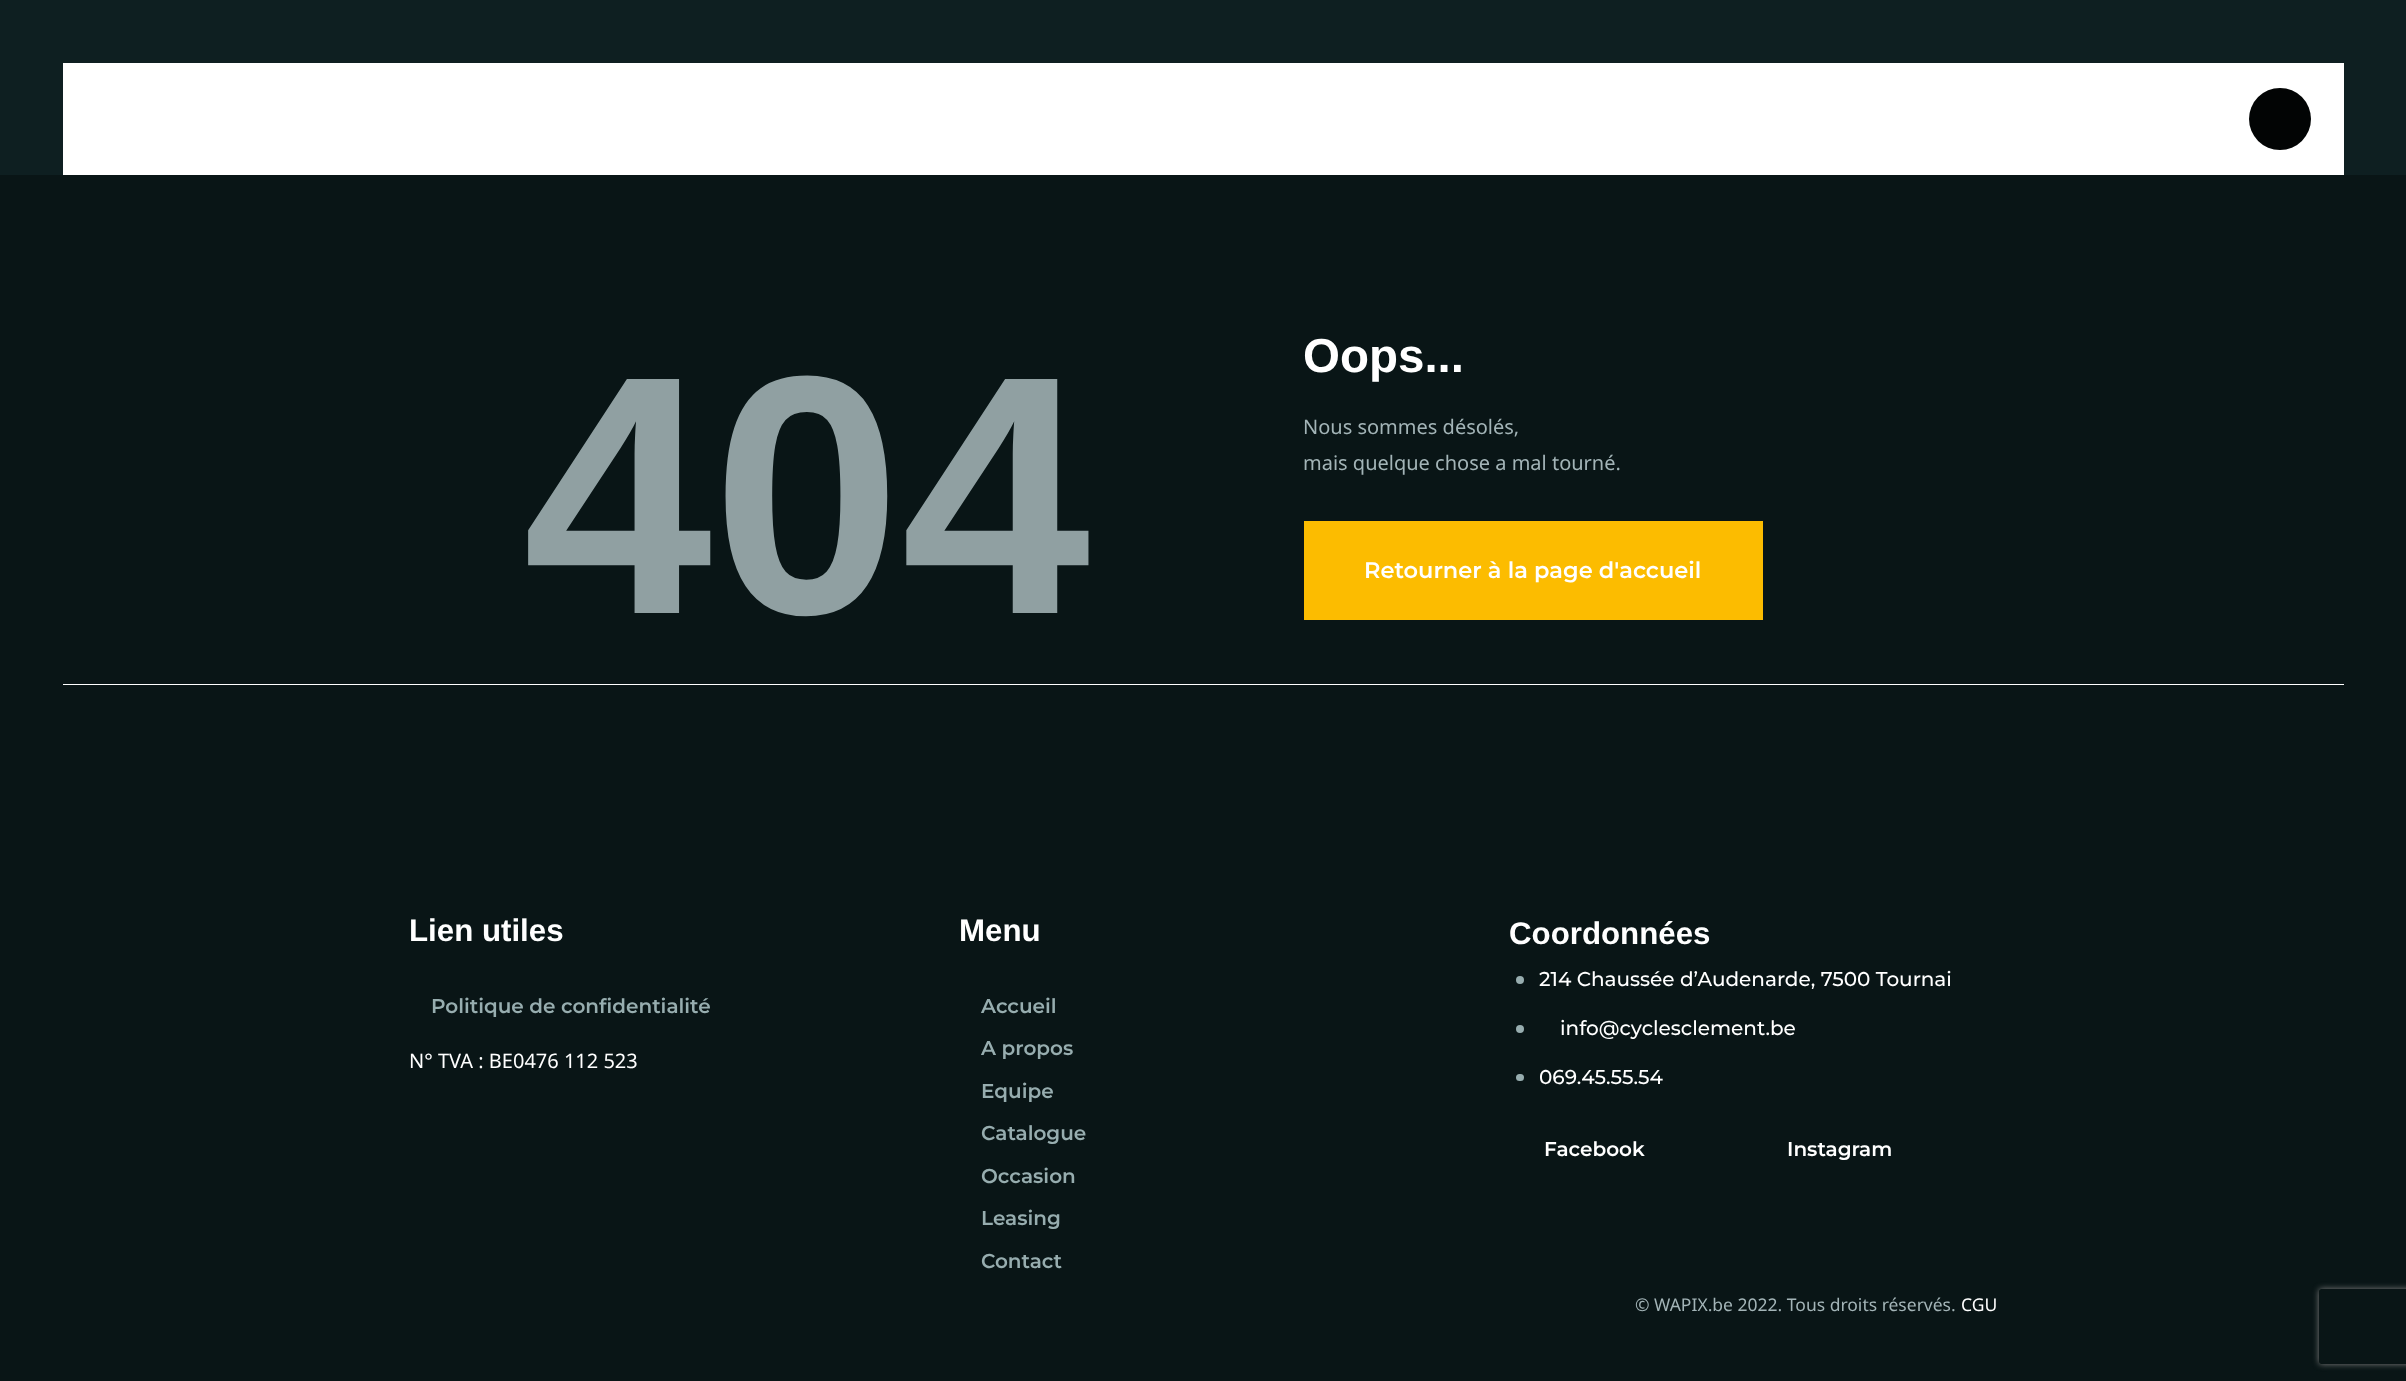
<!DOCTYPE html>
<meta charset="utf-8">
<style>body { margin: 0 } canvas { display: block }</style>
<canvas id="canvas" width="2406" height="1381"></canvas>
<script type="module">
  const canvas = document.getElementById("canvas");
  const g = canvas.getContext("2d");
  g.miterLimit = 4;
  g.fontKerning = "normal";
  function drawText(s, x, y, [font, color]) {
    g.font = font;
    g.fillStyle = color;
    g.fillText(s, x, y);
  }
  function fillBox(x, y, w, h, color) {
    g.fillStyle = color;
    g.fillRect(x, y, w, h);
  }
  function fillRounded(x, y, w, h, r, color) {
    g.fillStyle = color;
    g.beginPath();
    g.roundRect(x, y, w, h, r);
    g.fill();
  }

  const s1 = ["bold 340px Liberation Sans", "#90A0A2"];
  const s2 = ["bold 47.5px Liberation Sans", "#FFFFFF"];
  const s3 = ["20px Noto Sans", "#A3B4B7"];
  const s4 = ["600 22.5px Montserrat", "#FFFFFF"];
  const s5 = ["bold 31.25px Liberation Sans", "#FFFFFF"];
  const s6 = ["600 20px Montserrat", "#97ADAF"];
  const s7 = ["20px Noto Sans", "#FFFFFF"];
  const s8 = ["500 20px Montserrat", "#FFFFFF"];
  const s9 = ["600 20px Montserrat", "#FFFFFF"];
  const s10 = ["17.5px Noto Sans", "#A3B4B7"];
  const s11 = ["17.5px Noto Sans", "#FFFFFF"];

  fillBox(0, 0, 2406, 1381, "#091516");
  fillBox(0, 0, 2406, 175, "#0E1F21");
  fillBox(63, 63, 2281, 112, "#FFFFFF");
  g.fillStyle = "#020404";
  g.beginPath();
  g.arc(2280, 119, 31, 0, Math.PI * 2);
  g.fill();
  drawText("404", 523, 613, s1);
  drawText("Oops...", 1303, 372, s2);
  drawText("Nous sommes désolés,", 1303, 434, s3);
  drawText("mais quelque chose a mal tourné.", 1303, 470, s3);
  fillBox(1304, 521, 459, 99, "#FCBC00");
  drawText("Retourner à la page d'accueil", 1364, 578, s4);
  fillBox(63, 684, 2281, 1, "#FFFFFF");
  drawText("Lien utiles", 409, 941, s5);
  drawText("Politique de confidentialité", 431, 1013, s6);
  drawText("N° TVA : BE0476 112 523", 409, 1068, s7);
  drawText("Menu", 959, 941, s5);
  drawText("Accueil", 981, 1013, s6);
  drawText("A propos", 981, 1055, s6);
  drawText("Equipe", 981, 1098, s6);
  drawText("Catalogue", 981, 1140, s6);
  drawText("Occasion", 981, 1183, s6);
  drawText("Leasing", 981, 1225, s6);
  drawText("Contact", 981, 1268, s6);
  drawText("Coordonnées", 1509, 944, s5);
  g.fillStyle = "#97ADAF";
  g.beginPath();
  g.arc(1520, 980, 4, 0, Math.PI * 2);
  g.fill();
  drawText("214 Chaussée d’Audenarde, 7500 Tournai", 1539, 986, s8);
  g.fillStyle = "#97ADAF";
  g.beginPath();
  g.arc(1520, 1029, 4, 0, Math.PI * 2);
  g.fill();
  drawText("info@cyclesclement.be", 1560, 1035, s8);
  fillRounded(1516, 1074, 8, 7, 3.5, "#97ADAF");
  drawText("069.45.55.54", 1539, 1084, s8);
  drawText("Facebook", 1544, 1156, s9);
  drawText("Instagram", 1787, 1156, s9);
  drawText("© WAPIX.be 2022. Tous droits réservés.", 1635, 1311, s10);
  drawText("CGU", 1961, 1311, s11);
  g.save();
  g.beginPath();
  g.moveTo(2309, 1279);
  g.lineTo(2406, 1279);
  g.lineTo(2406, 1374);
  g.lineTo(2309, 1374);
  g.closePath();
  g.moveTo(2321.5, 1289);
  g.lineTo(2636.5, 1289);
  g.bezierCurveTo(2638, 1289, 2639, 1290, 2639, 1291.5);
  g.lineTo(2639, 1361.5);
  g.bezierCurveTo(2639, 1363, 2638, 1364, 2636.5, 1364);
  g.lineTo(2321.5, 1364);
  g.bezierCurveTo(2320, 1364, 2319, 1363, 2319, 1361.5);
  g.lineTo(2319, 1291.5);
  g.bezierCurveTo(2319, 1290, 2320, 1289, 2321.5, 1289);
  g.closePath();
  g.clip("evenodd");
  g.fillStyle = "#808080";
  g.filter = "blur(3px)";
  g.beginPath();
  g.roundRect(2319, 1289, 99, 75, 2.5);
  g.fill();
  g.filter = "none";
  g.restore();
</script>
